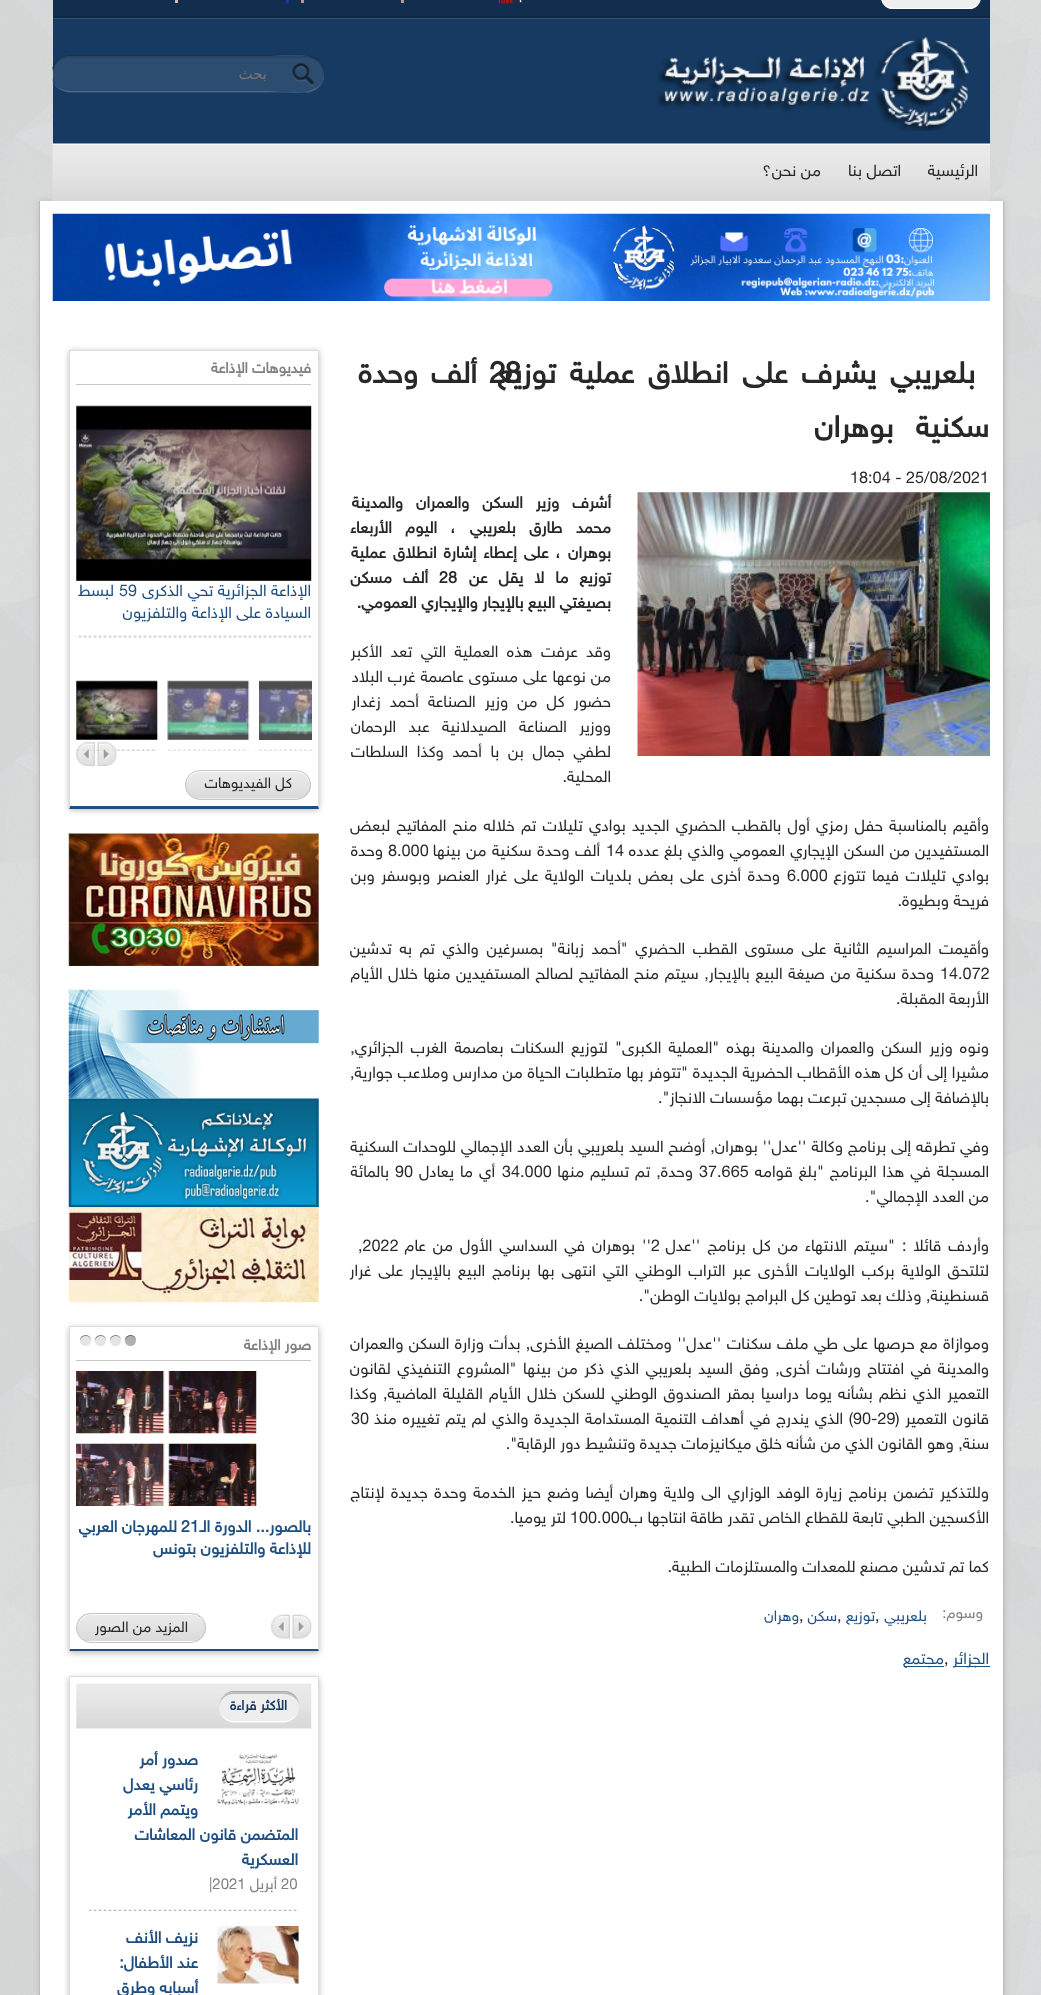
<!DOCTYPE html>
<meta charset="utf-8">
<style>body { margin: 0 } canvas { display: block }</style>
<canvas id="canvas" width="1041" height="1995"></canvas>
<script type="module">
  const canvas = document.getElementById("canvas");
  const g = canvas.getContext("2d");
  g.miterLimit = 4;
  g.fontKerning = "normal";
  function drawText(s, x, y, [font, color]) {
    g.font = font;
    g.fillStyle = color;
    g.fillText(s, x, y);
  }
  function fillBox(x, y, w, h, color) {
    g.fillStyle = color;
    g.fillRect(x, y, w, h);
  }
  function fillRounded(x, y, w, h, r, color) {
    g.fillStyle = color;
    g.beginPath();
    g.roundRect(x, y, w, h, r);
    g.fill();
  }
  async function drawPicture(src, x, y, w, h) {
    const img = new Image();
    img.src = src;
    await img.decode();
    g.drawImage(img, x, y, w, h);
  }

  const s1 = ["15px DejaVu Sans", "#757575"];
  const s2 = ["16.25px 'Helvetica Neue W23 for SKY'", "#282828"];
  const s3 = ["bold 30px 'Helvetica Neue W23 for SKY'", "#282828"];
  const s4 = ["bold 16.25px 'Helvetica Neue W23 for SKY'", "#282828"];
  const s5 = ["15px 'Helvetica Neue W23 for SKY'", "#828181"];
  const s6 = ["15px 'Helvetica Neue W23 for SKY'", "#1F4F82"];
  const s7 = ["16.25px 'Helvetica Neue W23 for SKY'", "#1F4F82"];
  const s8 = ["bold 15px 'Helvetica Neue W23 for SKY'", "#828181"];
  const s9 = ["15px 'Helvetica Neue W23 for SKY'", "#282828"];
  const s10 = ["bold 16.25px 'Helvetica Neue W23 for SKY'", "#1F4F82"];
  const s11 = ["bold 13.75px 'Helvetica Neue W23 for SKY'", "#163A61"];

  fillBox(0, 0, 1041, 1995, "#FFFFFF");
  await drawPicture("pic1.png", 0, 0, 1041, 1995);
  fillBox(53, 0, 937, 18, "#122E4E");
  fillBox(53, 16, 937, 1, "#0F2640");
  fillRounded(881, -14, 100, 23, 14, "#EEEEEE");
  g.fillStyle = "#FFFFFF";
  g.beginPath();
  g.moveTo(892, 9);
  g.bezierCurveTo(887, 8, 881, 3, 881, -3);
  g.bezierCurveTo(882, 3, 888, 8, 895, 8);
  g.lineTo(968, 8);
  g.bezierCurveTo(975, 8, 981, 2, 981, -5);
  g.bezierCurveTo(981, 2, 976, 8, 970, 9);
  g.closePath();
  g.fill();
  await drawPicture("pic2.png", 518, 0, 4, 3);
  await drawPicture("pic3.png", 498, 0, 15, 4);
  fillBox(401, 0, 3, 3, "#C59090");
  fillBox(301, 0, 3, 3, "#C59090");
  await drawPicture("pic4.png", 285, 0, 5, 4);
  fillBox(175, 0, 3, 3, "#DBB9B9");
  fillBox(53, 19, 937, 125, "#163A61");
  fillBox(53, 18, 937, 1, "#305072");
  await drawPicture("pic5.png", 657, 37, 312, 94);
  fillRounded(53, 55, 271, 38, 18, "#2D4D70");
  g.fillStyle = "rgba(0, 0, 0, 0.1)";
  g.beginPath();
  g.moveTo(70, 58);
  g.lineTo(306, 58);
  g.bezierCurveTo(317, 58, 324, 66, 324, 77);
  g.bezierCurveTo(325, 66, 318, 56, 306, 56);
  g.lineTo(70, 56);
  g.bezierCurveTo(61, 56, 53, 63, 52, 72);
  g.bezierCurveTo(54, 65, 60, 58, 70, 58);
  g.closePath();
  g.fill();
  g.fillStyle = "#1C3045";
  g.beginPath();
  g.moveTo(70, 55);
  g.bezierCurveTo(61, 55, 52, 62, 52, 71);
  g.bezierCurveTo(54, 62, 61, 56, 70, 56);
  g.lineTo(267, 56);
  g.bezierCurveTo(280, 56, 323, 47, 324, 74);
  g.lineTo(324, 69);
  g.bezierCurveTo(322, 61, 315, 55, 306, 55);
  g.closePath();
  g.fill();
  g.fillStyle = "#4C6886";
  g.beginPath();
  g.moveTo(324, 78);
  g.lineTo(324, 74);
  g.bezierCurveTo(324, 86, 314, 91, 302, 92);
  g.lineTo(281, 92);
  g.lineTo(267, 91);
  g.lineTo(70, 91);
  g.lineTo(63, 90);
  g.bezierCurveTo(57, 88, 53, 83, 52, 78);
  g.lineTo(52, 79);
  g.bezierCurveTo(54, 87, 61, 92, 70, 92);
  g.lineTo(281, 92);
  g.bezierCurveTo(287, 92, 295, 93, 302, 92);
  g.lineTo(306, 92);
  g.bezierCurveTo(315, 92, 322, 86, 324, 78);
  g.closePath();
  g.fill();
  await drawPicture("pic6.png", 292, 63, 22, 23);
  g.direction = "rtl";
  drawText("بحث", 267, 79, s1);
  g.fillStyle = "#BBBBBB";
  g.filter = "blur(3px)";
  g.beginPath();
  g.rect(39, 201, 965, 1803);
  g.fill();
  g.filter = "none";
  await drawPicture("pic7.png", 52, 143, 938, 58);
  drawText("الرئيسية", 978, 176, s2);
  drawText("اتصل بنا", 901, 176, s2);
  drawText("من نحن؟", 821, 176, s2);
  fillBox(40, 201, 963, 1794, "#FFFFFF");
  fillBox(1003, 201, 1, 1794, "#BBBBBB");
  fillBox(39, 201, 1, 1794, "#BBBBBB");
  await drawPicture("pic8.png", 52, 213, 938, 88);
  g.letterSpacing = "-1.25px";
  g.wordSpacing = "6.75px";
  drawText(" بلعريبي يشرف على انطلاق عملية توزيع", 989, 383, s3);
  g.wordSpacing = "0px";
  g.direction = "ltr";
  drawText("28", 489, 383, s3);
  g.wordSpacing = "6px";
  g.direction = "rtl";
  drawText("ألف وحدة", 477, 383, s3);
  g.wordSpacing = "15px";
  drawText("سكنية بوهران", 989, 437, s3);
  g.letterSpacing = "0px";
  g.wordSpacing = "0px";
  g.direction = "ltr";
  drawText("18:04 - 25/08/2021", 850, 483, s2);
  await drawPicture("pic9.png", 637, 492, 353, 264);
  g.wordSpacing = "8.5px";
  g.direction = "rtl";
  drawText("أشرف وزير السكن والعمران والمدينة", 611, 508, s4);
  g.wordSpacing = "9px";
  drawText("محمد طارق بلعريبي ، اليوم الأربعاء", 611, 533, s4);
  g.wordSpacing = "2.5px";
  drawText("بوهران ، على إعطاء إشارة انطلاق عملية", 611, 558, s4);
  g.wordSpacing = "6.5px";
  drawText("توزيع ما لا يقل عن", 611, 583, s4);
  g.wordSpacing = "0px";
  g.direction = "ltr";
  drawText("28", 439, 583, s4);
  g.wordSpacing = "6.5px";
  g.direction = "rtl";
  drawText("ألف مسكن", 428, 583, s4);
  g.wordSpacing = "0px";
  drawText("بصيغتي البيع بالإيجار والإيجاري العمومي.", 611, 608, s4);
  g.wordSpacing = "4px";
  drawText("وقد عرفت هذه العملية التي تعد الأكبر", 611, 657, s2);
  g.wordSpacing = "0.5px";
  drawText("من نوعها على مستوى عاصمة غرب البلاد", 611, 682, s2);
  g.wordSpacing = "4.5px";
  drawText("حضور كل من وزير الصناعة أحمد زغدار", 611, 707, s2);
  g.wordSpacing = "8px";
  drawText("ووزير الصناعة الصيدلانية عبد الرحمان", 611, 732, s2);
  g.wordSpacing = "4.25px";
  drawText("لطفي جمال بن با أحمد وكذا السلطات", 611, 757, s2);
  g.wordSpacing = "0px";
  drawText("المحلية.", 611, 782, s2);
  g.wordSpacing = "1.75px";
  drawText("وأقيم بالمناسبة حفل رمزي أول بالقطب الحضري الجديد بوادي تليلات تم خلاله منح المفاتيح لبعض", 989, 831, s2);
  g.wordSpacing = "0.75px";
  drawText("المستفيدين من السكن الإيجاري العمومي والذي بلغ عدده", 989, 856, s2);
  g.wordSpacing = "0px";
  g.direction = "ltr";
  drawText("14", 606, 856, s2);
  g.wordSpacing = "1px";
  g.direction = "rtl";
  drawText("ألف وحدة سكنية من بينها", 600, 856, s2);
  g.wordSpacing = "0px";
  g.direction = "ltr";
  drawText("8.000", 388, 856, s2);
  g.direction = "rtl";
  drawText("وحدة", 383, 856, s2);
  g.wordSpacing = "2px";
  drawText("بوادي تليلات فيما تتوزع", 989, 881, s2);
  g.wordSpacing = "0px";
  g.direction = "ltr";
  drawText("6.000", 787, 881, s2);
  g.wordSpacing = "2px";
  g.direction = "rtl";
  drawText("وحدة أخرى على بعض بلديات الولاية على غرار العنصر وبوسفر وبن", 780, 881, s2);
  g.wordSpacing = "0px";
  drawText("فريحة وبطيوة.", 989, 906, s2);
  g.wordSpacing = "3.1px";
  drawText("وأقيمت المراسيم الثانية على مستوى القطب الحضري \"أحمد زبانة\" بمسرغين والذي تم به تدشين", 989, 954, s2);
  g.wordSpacing = "0px";
  g.direction = "ltr";
  drawText("14.072", 940, 979, s2);
  g.wordSpacing = "1.1px";
  g.direction = "rtl";
  drawText("وحدة سكنية من صيغة البيع بالإيجار, سيتم منح المفاتيح لصالح المستفيدين منها خلال الأيام", 934, 979, s2);
  g.wordSpacing = "0px";
  drawText("الأربعة المقبلة.", 989, 1004, s2);
  g.wordSpacing = "2.75px";
  drawText("ونوه وزير السكن والعمران والمدينة بهذه \"العملية الكبرى\" لتوزيع السكنات بعاصمة الغرب الجزائري,", 989, 1053, s2);
  g.wordSpacing = "0.2px";
  drawText("مشيرا إلى أن كل هذه الأقطاب الحضرية الجديدة \"تتوفر بها متطلبات الحياة من مدارس وملاعب جوارية,", 989, 1078, s2);
  g.wordSpacing = "0px";
  drawText("بالإضافة إلى مسجدين تبرعت بهما مؤسسات الانجاز\".", 989, 1103, s2);
  g.wordSpacing = "0.4px";
  drawText("وفي تطرقه إلى برنامج وكالة ''عدل'' بوهران, أوضح السيد بلعريبي بأن العدد الإجمالي للوحدات السكنية", 989, 1152, s2);
  g.wordSpacing = "1.5px";
  drawText("المسجلة في هذا البرنامج \"بلغ قوامه", 989, 1177, s2);
  g.wordSpacing = "0px";
  g.direction = "ltr";
  drawText("37.665", 699, 1177, s2);
  g.wordSpacing = "1.5px";
  g.direction = "rtl";
  drawText("وحدة, تم تسليم منها", 693, 1177, s2);
  g.wordSpacing = "0px";
  g.direction = "ltr";
  drawText("34.000", 502, 1177, s2);
  g.wordSpacing = "1.5px";
  g.direction = "rtl";
  drawText("أي ما يعادل", 495, 1177, s2);
  g.wordSpacing = "0px";
  g.direction = "ltr";
  drawText("90", 395, 1177, s2);
  g.direction = "rtl";
  drawText("بالمائة", 389, 1177, s2);
  drawText("من العدد الإجمالي\".", 989, 1202, s2);
  g.wordSpacing = "2.5px";
  drawText("وأردف قائلا : \"سيتم الانتهاء من كل برنامج ''عدل", 989, 1251, s2);
  g.wordSpacing = "0px";
  g.direction = "ltr";
  drawText("2", 651, 1251, s2);
  g.wordSpacing = "2.5px";
  g.direction = "rtl";
  drawText("'' بوهران في السداسي الأول من عام", 651, 1251, s2);
  g.wordSpacing = "0px";
  g.direction = "ltr";
  drawText(",2022", 358, 1251, s2);
  g.wordSpacing = "2.5px";
  g.direction = "rtl";
  drawText("لتلتحق الولاية بركب الولايات الأخرى عبر التراب الوطني التي انتهى بها برنامج البيع بالإيجار على غرار", 989, 1276, s2);
  g.wordSpacing = "0px";
  drawText("قسنطينة, وذلك بعد توطين كل البرامج بولايات الوطن\".", 989, 1301, s2);
  g.wordSpacing = "0.9px";
  drawText("وموازاة مع حرصها على طي ملف سكنات ''عدل'' ومختلف الصيغ الأخرى, بدأت وزارة السكن والعمران", 989, 1349, s2);
  g.wordSpacing = "2px";
  drawText("والمدينة في افتتاح ورشات أخرى, وفق السيد بلعريبي الذي ذكر من بينها \"المشروع التنفيذي لقانون", 989, 1374, s2);
  g.wordSpacing = "1.7px";
  drawText("التعمير الذي نظم بشأنه يوما دراسيا بمقر الصندوق الوطني للسكن خلال الأيام القليلة الماضية, وكذا", 989, 1399, s2);
  g.wordSpacing = "1.25px";
  drawText("قانون التعمير (", 989, 1424, s2);
  g.wordSpacing = "0px";
  g.direction = "ltr";
  drawText("90-29", 853, 1424, s2);
  g.wordSpacing = "1.25px";
  g.direction = "rtl";
  drawText(") الذي يندرج في أهداف التنمية المستدامة الجديدة والذي لم يتم تغييره منذ", 853, 1424, s2);
  g.wordSpacing = "0px";
  g.direction = "ltr";
  drawText("30", 351, 1424, s2);
  g.direction = "rtl";
  drawText("سنة, وهو القانون الذي من شأنه خلق ميكانيزمات جديدة وتنشيط دور الرقابة\".", 989, 1449, s2);
  g.wordSpacing = "2px";
  drawText("وللتذكير تضمن برنامج زيارة الوفد الوزاري الى ولاية وهران أيضا وضع حيز الخدمة وحدة جديدة لإنتاج", 989, 1498, s2);
  g.wordSpacing = "0px";
  drawText("الأكسجين الطبي تابعة للقطاع الخاص تقدر طاقة انتاجها ب", 989, 1523, s2);
  g.direction = "ltr";
  drawText("100.000", 570, 1523, s2);
  g.direction = "rtl";
  drawText("لتر يوميا.", 566, 1523, s2);
  drawText("كما تم تدشين مصنع للمعدات والمستلزمات الطبية.", 989, 1572, s2);
  drawText("وسوم:", 983, 1618, s5);
  drawText(" بلعريبي", 931, 1621, s6);
  g.direction = "ltr";
  drawText(",", 875, 1621, s2);
  g.direction = "rtl";
  drawText("توزيع", 875, 1621, s6);
  g.direction = "ltr";
  drawText(",", 837, 1621, s2);
  g.direction = "rtl";
  drawText("سكن", 837, 1621, s6);
  g.direction = "ltr";
  drawText(",", 799, 1621, s2);
  g.direction = "rtl";
  drawText("وهران", 799, 1621, s6);
  fillBox(954, 1666, 36, 1, "#1F4F82");
  drawText("الجزائر", 989, 1664, s7);
  g.direction = "ltr";
  drawText(",", 944, 1664, s2);
  fillBox(904, 1666, 40, 1, "#1F4F82");
  g.direction = "rtl";
  drawText("مجتمع", 944, 1664, s7);
  g.save();
  g.beginPath();
  g.moveTo(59, 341);
  g.lineTo(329, 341);
  g.lineTo(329, 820);
  g.lineTo(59, 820);
  g.closePath();
  g.moveTo(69, 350);
  g.lineTo(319, 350);
  g.lineTo(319, 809);
  g.lineTo(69, 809);
  g.closePath();
  g.clip("evenodd");
  g.fillStyle = "#BBBBBB";
  g.filter = "blur(3px)";
  g.beginPath();
  g.rect(69, 351, 250, 459);
  g.fill();
  g.filter = "none";
  g.restore();
  fillBox(69, 350, 250, 1, "#DDDDDD");
  g.beginPath();
  g.moveTo(319, 350);
  g.lineTo(319, 809);
  g.lineTo(318, 806);
  g.lineTo(318, 351);
  g.closePath();
  g.fill();
  g.fillStyle = "#1F4F82";
  g.beginPath();
  g.moveTo(319, 809);
  g.lineTo(69, 809);
  g.lineTo(70, 806);
  g.lineTo(318, 806);
  g.closePath();
  g.fill();
  g.fillStyle = "#DDDDDD";
  g.beginPath();
  g.moveTo(69, 809);
  g.lineTo(69, 350);
  g.lineTo(70, 351);
  g.lineTo(70, 806);
  g.closePath();
  g.fill();
  fillBox(76, 384, 235, 1, "#C6C6C6");
  drawText("فيديوهات الإذاعة", 311, 373, s8);
  await drawPicture("pic10.png", 76, 635, 235, 3);
  await drawPicture("pic11.png", 76, 405, 236, 176);
  drawText("الإذاعة الجزائرية تحي الذكرى", 311, 596, s7);
  g.direction = "ltr";
  drawText("59", 119, 596, s7);
  g.direction = "rtl";
  drawText("لبسط", 114, 596, s7);
  drawText("السيادة على الإذاعة والتلفزيون", 311, 618, s7);
  await drawPicture("pic12.png", 259, 749, 53, 2);
  await drawPicture("pic13.png", 259, 680, 53, 60);
  await drawPicture("pic14.png", 168, 749, 82, 2);
  await drawPicture("pic15.png", 167, 680, 83, 60);
  await drawPicture("pic16.png", 76, 749, 82, 2);
  await drawPicture("pic17.png", 76, 680, 82, 60);
  await drawPicture("pic18.png", 97, 742, 20, 24);
  await drawPicture("pic19.png", 76, 742, 19, 24);
  await drawPicture("pic20.png", 185, 771, 126, 28);
  g.fillStyle = "#FFFFFF";
  g.beginPath();
  g.moveTo(200, 772);
  g.lineTo(296, 772);
  g.bezierCurveTo(304, 772, 310, 779, 310, 786);
  g.lineTo(310, 785);
  g.bezierCurveTo(310, 777, 304, 771, 296, 771);
  g.lineTo(200, 771);
  g.bezierCurveTo(192, 771, 186, 777, 186, 785);
  g.lineTo(186, 786);
  g.bezierCurveTo(186, 779, 192, 772, 200, 772);
  g.closePath();
  g.fill();
  g.beginPath();
  g.roundRect(185.5, 770.5, 125, 29, 14.5);
  g.strokeStyle = "#C6C6C6";
  g.stroke();
  drawText("كل الفيديوهات", 292, 788, s9);
  await drawPicture("pic21.png", 68, 833, 251, 133);
  await drawPicture("pic22.png", 68, 989, 251, 110);
  await drawPicture("pic23.png", 68, 1098, 251, 110);
  await drawPicture("pic24.png", 68, 1207, 251, 96);
  g.save();
  g.beginPath();
  g.moveTo(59, 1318);
  g.lineTo(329, 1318);
  g.lineTo(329, 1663);
  g.lineTo(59, 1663);
  g.closePath();
  g.moveTo(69, 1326);
  g.lineTo(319, 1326);
  g.lineTo(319, 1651);
  g.lineTo(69, 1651);
  g.closePath();
  g.clip("evenodd");
  g.fillStyle = "#BBBBBB";
  g.filter = "blur(3px)";
  g.beginPath();
  g.rect(69, 1328, 250, 325);
  g.fill();
  g.filter = "none";
  g.restore();
  fillBox(69, 1326, 250, 1, "#DDDDDD");
  g.beginPath();
  g.moveTo(319, 1326);
  g.lineTo(319, 1651);
  g.lineTo(318, 1649);
  g.lineTo(318, 1328);
  g.closePath();
  g.fill();
  g.fillStyle = "#1F4F82";
  g.beginPath();
  g.moveTo(319, 1651);
  g.lineTo(69, 1651);
  g.lineTo(70, 1649);
  g.lineTo(318, 1649);
  g.closePath();
  g.fill();
  g.fillStyle = "#DDDDDD";
  g.beginPath();
  g.moveTo(69, 1651);
  g.lineTo(69, 1326);
  g.lineTo(70, 1328);
  g.lineTo(70, 1649);
  g.closePath();
  g.fill();
  fillBox(76, 1360, 235, 1, "#C6C6C6");
  drawText("صور الإذاعة", 311, 1350, s8);
  g.fillStyle = "#B0B0B0";
  g.beginPath();
  g.arc(130.5, 1340.5, 5.5, 0, Math.PI * 2);
  g.fill();
  g.fillStyle = "rgba(0, 0, 0, 0.4)";
  g.beginPath();
  g.moveTo(131, 1336);
  g.bezierCurveTo(133.5, 1336, 135.5, 1338, 136, 1340);
  g.bezierCurveTo(135.5, 1332.5, 124, 1334, 125, 1341);
  g.bezierCurveTo(125.5, 1338.5, 127.5, 1336, 131, 1336);
  g.closePath();
  g.fill();
  g.fillStyle = "#E4E4E4";
  g.beginPath();
  g.arc(115.5, 1340.5, 5.5, 0, Math.PI * 2);
  g.fill();
  g.fillStyle = "rgba(0, 0, 0, 0.4)";
  g.beginPath();
  g.moveTo(116, 1336);
  g.bezierCurveTo(118.5, 1336, 120.5, 1338, 121, 1340);
  g.bezierCurveTo(120.5, 1332.5, 109, 1334, 110, 1341);
  g.bezierCurveTo(110.5, 1338.5, 112.5, 1336, 116, 1336);
  g.closePath();
  g.fill();
  g.fillStyle = "#E4E4E4";
  g.beginPath();
  g.arc(100.5, 1340.5, 5.5, 0, Math.PI * 2);
  g.fill();
  g.fillStyle = "rgba(0, 0, 0, 0.4)";
  g.beginPath();
  g.moveTo(101, 1336);
  g.bezierCurveTo(103.5, 1336, 105.5, 1338, 106, 1340);
  g.bezierCurveTo(105.5, 1332.5, 94, 1334, 95, 1341);
  g.bezierCurveTo(95.5, 1338.5, 97.5, 1336, 101, 1336);
  g.closePath();
  g.fill();
  g.fillStyle = "#E4E4E4";
  g.beginPath();
  g.arc(85.5, 1340.5, 5.5, 0, Math.PI * 2);
  g.fill();
  g.fillStyle = "rgba(0, 0, 0, 0.4)";
  g.beginPath();
  g.moveTo(86, 1336);
  g.bezierCurveTo(88.5, 1336, 90.5, 1338, 91, 1340);
  g.bezierCurveTo(90.5, 1332.5, 79, 1334, 80, 1341);
  g.bezierCurveTo(80.5, 1338.5, 82.5, 1336, 86, 1336);
  g.closePath();
  g.fill();
  await drawPicture("pic25.png", 168, 1371, 89, 63);
  await drawPicture("pic26.png", 76, 1371, 89, 63);
  await drawPicture("pic27.png", 168, 1443, 89, 63);
  await drawPicture("pic28.png", 76, 1443, 89, 63);
  drawText("بالصور... الدورة الـ", 311, 1532, s10);
  g.direction = "ltr";
  drawText("21", 181, 1532, s10);
  g.direction = "rtl";
  drawText("للمهرجان العربي", 177, 1532, s10);
  drawText("للإذاعة والتلفزيون بتونس", 311, 1554, s10);
  await drawPicture("pic29.png", 292, 1614, 20, 25);
  await drawPicture("pic30.png", 271, 1614, 19, 25);
  await drawPicture("pic31.png", 76, 1613, 130, 28);
  g.fillStyle = "#FFFFFF";
  g.beginPath();
  g.moveTo(91, 1615);
  g.lineTo(191, 1615);
  g.bezierCurveTo(199, 1615, 205, 1621, 205, 1628);
  g.bezierCurveTo(205, 1620, 199, 1614, 192, 1614);
  g.lineTo(92, 1614);
  g.bezierCurveTo(84, 1614, 78, 1620, 78, 1628);
  g.bezierCurveTo(78, 1621, 84, 1615, 91, 1615);
  g.closePath();
  g.fill();
  g.beginPath();
  g.roundRect(76.5, 1613.5, 129, 29, 14.5);
  g.stroke();
  drawText("المزيد من الصور", 188, 1632, s9);
  g.save();
  g.beginPath();
  g.moveTo(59, 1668);
  g.lineTo(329, 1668);
  g.lineTo(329, 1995);
  g.lineTo(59, 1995);
  g.closePath();
  g.moveTo(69, 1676);
  g.lineTo(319, 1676);
  g.lineTo(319, 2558);
  g.lineTo(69, 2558);
  g.closePath();
  g.clip("evenodd");
  g.fillStyle = "#BBBBBB";
  g.filter = "blur(3px)";
  g.beginPath();
  g.rect(69, 1678, 250, 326);
  g.fill();
  g.filter = "none";
  g.restore();
  fillBox(69, 1676, 250, 1, "#DDDDDD");
  g.beginPath();
  g.moveTo(319, 1676);
  g.lineTo(319, 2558);
  g.lineTo(318, 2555);
  g.lineTo(318, 1678);
  g.closePath();
  g.fill();
  g.beginPath();
  g.moveTo(69, 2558);
  g.lineTo(69, 1676);
  g.lineTo(70, 1678);
  g.lineTo(70, 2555);
  g.closePath();
  g.fill();
  await drawPicture("pic32.png", 76, 1683, 236, 46);
  fillRounded(219, 1691, 80, 32, 16, "#EEEEEE");
  g.fillStyle = "#BEBEBE";
  g.beginPath();
  g.moveTo(234, 1694);
  g.lineTo(283, 1694);
  g.bezierCurveTo(291, 1694, 297, 1698, 299, 1705);
  g.bezierCurveTo(297, 1698, 291, 1692, 283, 1692);
  g.lineTo(234, 1692);
  g.bezierCurveTo(226, 1692, 219, 1699, 219, 1707);
  g.lineTo(219, 1710);
  g.bezierCurveTo(218, 1701, 225, 1694, 234, 1694);
  g.closePath();
  g.fill();
  g.fillStyle = "#ADADAD";
  g.beginPath();
  g.moveTo(234, 1692);
  g.bezierCurveTo(226, 1692, 219, 1699, 219, 1707);
  g.bezierCurveTo(219, 1699, 225, 1693, 231, 1691);
  g.lineTo(286, 1691);
  g.bezierCurveTo(293, 1692, 298, 1697, 299, 1704);
  g.bezierCurveTo(297, 1698, 291, 1692, 283, 1692);
  g.closePath();
  g.fill();
  g.fillStyle = "#FFFFFF";
  g.beginPath();
  g.moveTo(299, 1710);
  g.bezierCurveTo(297, 1717, 291, 1722, 283, 1722);
  g.lineTo(234, 1722);
  g.bezierCurveTo(226, 1722, 219, 1716, 219, 1707);
  g.bezierCurveTo(219, 1715, 226, 1721, 234, 1721);
  g.lineTo(283, 1721);
  g.bezierCurveTo(291, 1721, 297, 1716, 299, 1710);
  g.closePath();
  g.fill();
  drawText("الأكثر قراءة", 287, 1710, s11);
  await drawPicture("pic33.png", 88, 1909, 211, 2);
  drawText("صدور أمر", 198, 1765, s10);
  drawText("رئاسي يعدل", 198, 1790, s10);
  drawText("ويتمم الأمر", 198, 1815, s10);
  drawText("المتضمن قانون المعاشات", 298, 1840, s10);
  drawText("العسكرية", 298, 1865, s10);
  await drawPicture("pic34.png", 217, 1754, 82, 52);
  g.direction = "ltr";
  drawText("20", 281, 1889, s5);
  g.direction = "rtl";
  drawText("أبريل", 277, 1889, s5);
  g.direction = "ltr";
  drawText("|2021", 209, 1889, s5);
  await drawPicture("pic35.png", 217, 1926, 82, 58);
  g.direction = "rtl";
  drawText("نزيف الأنف", 198, 1943, s10);
  drawText("عند الأطفال:", 198, 1968, s10);
  drawText("أسبابه وطرق", 198, 1993, s10);
</script>
